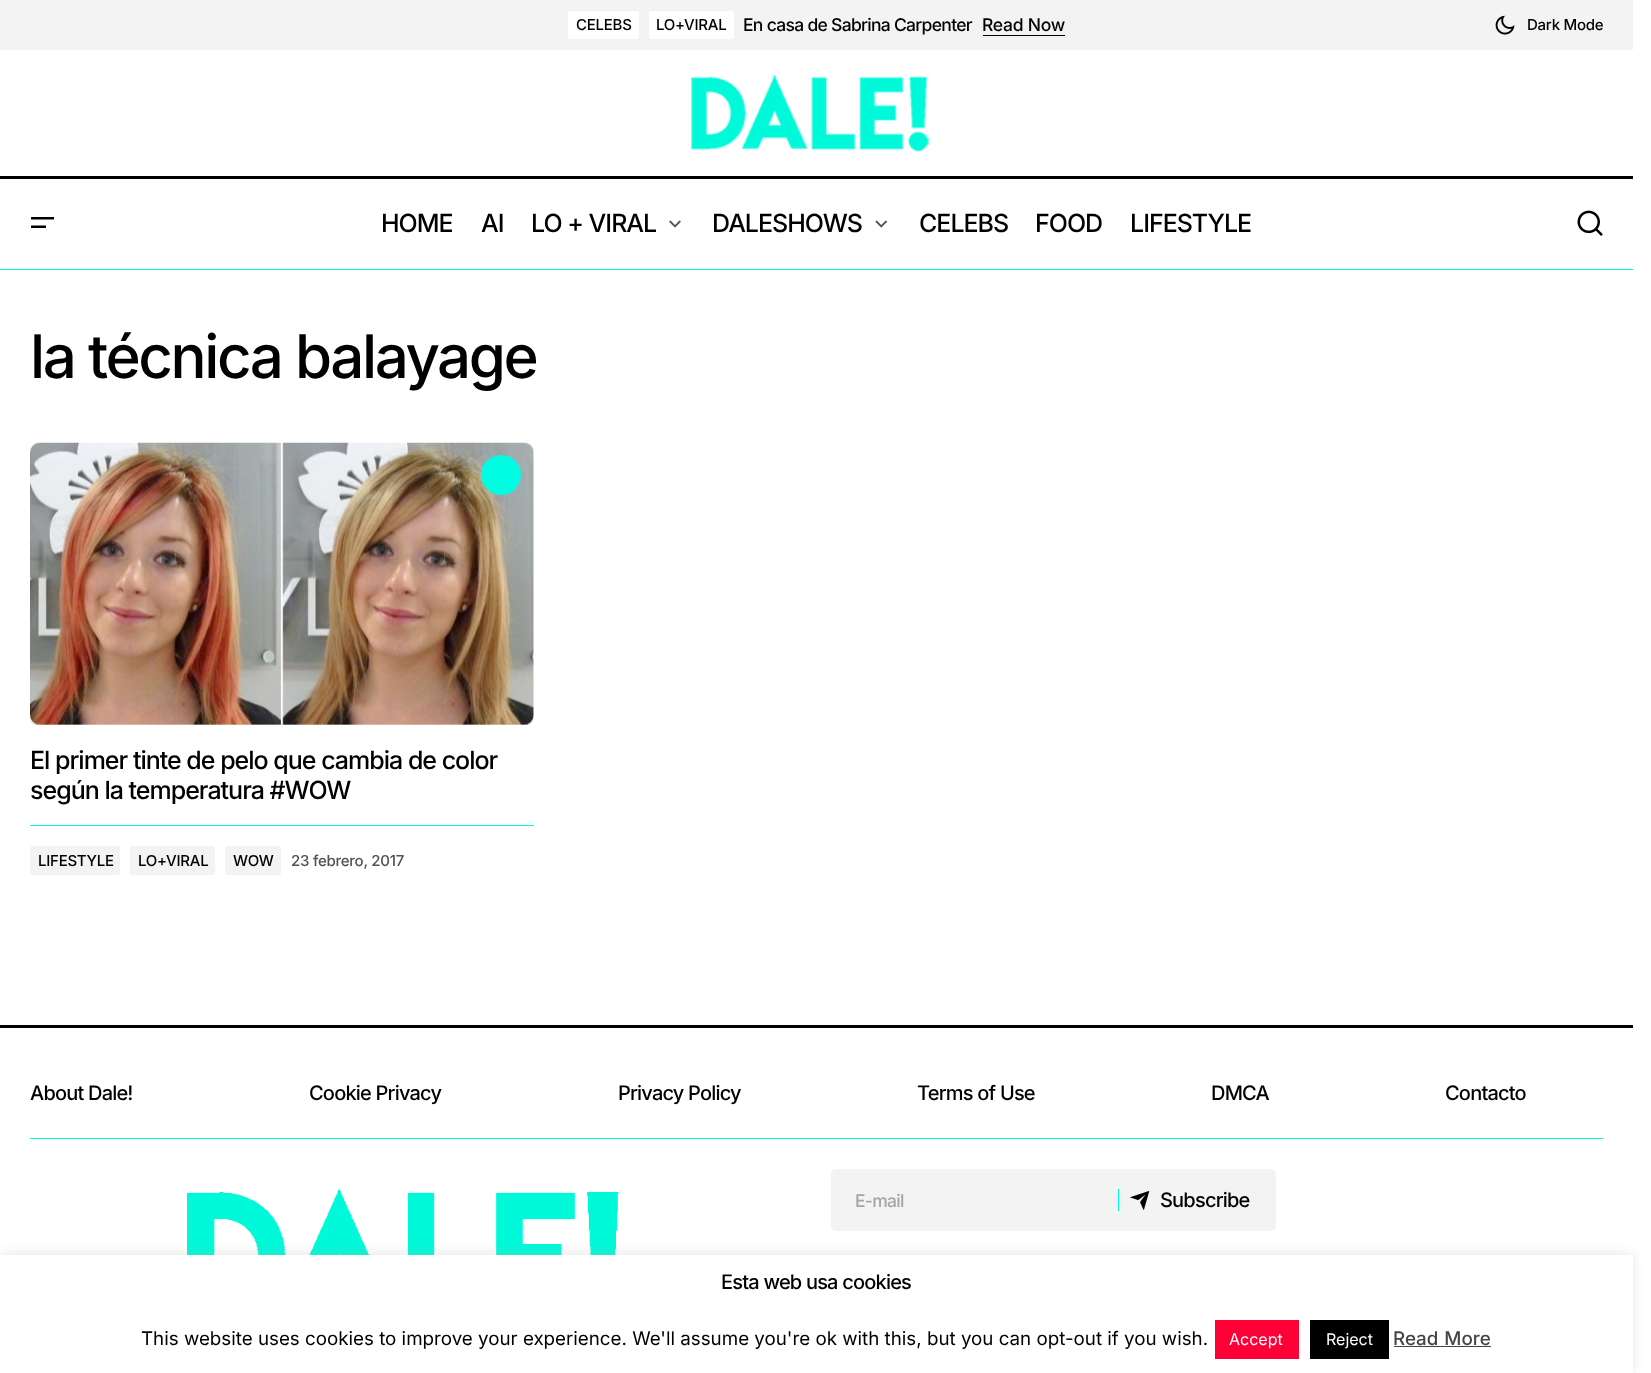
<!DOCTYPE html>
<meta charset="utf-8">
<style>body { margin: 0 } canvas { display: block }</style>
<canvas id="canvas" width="1651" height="1373"></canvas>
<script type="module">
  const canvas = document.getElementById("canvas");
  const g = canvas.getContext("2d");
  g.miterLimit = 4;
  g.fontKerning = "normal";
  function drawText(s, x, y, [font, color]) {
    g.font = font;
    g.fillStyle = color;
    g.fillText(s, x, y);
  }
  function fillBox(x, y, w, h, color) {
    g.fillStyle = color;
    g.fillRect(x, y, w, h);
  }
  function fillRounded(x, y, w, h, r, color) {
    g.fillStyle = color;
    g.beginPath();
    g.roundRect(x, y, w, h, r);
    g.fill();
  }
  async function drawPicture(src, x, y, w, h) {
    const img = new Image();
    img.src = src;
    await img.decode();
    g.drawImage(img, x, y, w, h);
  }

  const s1 = ["500 15px Inter", "#000000"];
  const s2 = ["500 17.5px Inter", "#000000"];
  const s3 = ["500 25px Inter", "#000000"];
  const s4 = ["500 60px Inter", "#000000"];
  const s5 = ["500 15px Inter", "#525252"];
  const s6 = ["500 20px Inter", "#000000"];
  const s7 = ["500 17.5px Inter", "#A5A5A5"];
  const s8 = ["18.75px Inter", "#000000"];
  const s9 = ["16px Inter", "#FFFFFF"];
  const s10 = ["500 18.75px Inter", "#444444"];

  fillBox(0, 0, 1651, 1373, "#FFFFFF");
  fillBox(0, 0, 1633, 50, "#F3F3F3");
  fillRounded(568, 11, 71, 28, 2.5, "#FFFFFF");
  g.letterSpacing = "-0.25px";
  drawText("CELEBS", 576, 30, s1);
  fillRounded(649, 11, 85, 28, 2.5, "#FFFFFF");
  drawText("LO+VIRAL", 656, 30, s1);
  g.letterSpacing = "-0.7px";
  drawText("En casa de Sabrina Carpenter", 743, 31, s2);
  fillBox(983, 35, 82, 1, "#000000");
  g.letterSpacing = "-0.25px";
  drawText("Read Now", 982, 31, s2);
  await drawPicture("pic1.png", 1495, 15, 20, 20);
  drawText("Dark Mode", 1527, 30, s1);
  await drawPicture("pic2.png", 691, 74, 238, 78);
  fillBox(0, 176, 1633, 3, "#000000");
  g.beginPath();
  g.moveTo(31, 217);
  g.lineTo(54, 217);
  g.lineTo(54, 219.5);
  g.lineTo(31, 219.5);
  g.closePath();
  g.moveTo(31, 225.5);
  g.lineTo(46, 225.5);
  g.lineTo(46, 228);
  g.lineTo(31, 228);
  g.closePath();
  g.fill();
  g.letterSpacing = "-1px";
  drawText("HOME", 381, 232, s3);
  drawText("AI", 481, 232, s3);
  drawText("LO + VIRAL", 531, 232, s3);
  await drawPicture("pic3.png", 669, 220, 12, 8);
  drawText("DALESHOWS", 712, 232, s3);
  await drawPicture("pic4.png", 875, 220, 13, 8);
  drawText("CELEBS", 919, 232, s3);
  drawText("FOOD", 1035, 232, s3);
  drawText("LIFESTYLE", 1130, 232, s3);
  await drawPicture("pic5.png", 1577, 210, 26, 26);
  fillBox(0, 269, 1633, 1, "#00FCE3");
  g.letterSpacing = "-2.4px";
  drawText("la técnica balayage", 30, 378, s4);
  g.save();
  g.beginPath();
  g.roundRect(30, 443, 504, 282, 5);
  g.clip();
  g.fillStyle = "rgba(0, 0, 0, 0.1)";
  g.filter = "blur(5px)";
  g.beginPath();
  g.roundRect(30, 448, 504, 282, 10);
  g.fill();
  g.filter = "none";
  g.restore();
  await drawPicture("pic6.png", 30, 442, 504, 283);
  g.fillStyle = "#00FCE3";
  g.beginPath();
  g.arc(501, 475, 20, 0, Math.PI * 2);
  g.fill();
  g.letterSpacing = "-1px";
  drawText("El primer tinte de pelo que cambia de color", 30, 769, s3);
  drawText("según la temperatura #WOW", 30, 799, s3);
  fillBox(30, 825, 504, 1, "#00FCE3");
  fillRounded(30, 846, 90, 29, 2.5, "#F3F3F3");
  g.letterSpacing = "-0.25px";
  drawText("LIFESTYLE", 38, 866, s1);
  fillRounded(130, 846, 85, 29, 2.5, "#F3F3F3");
  drawText("LO+VIRAL", 138, 866, s1);
  fillRounded(225, 846, 56, 29, 2.5, "#F3F3F3");
  drawText("WOW", 233, 866, s1);
  drawText("23 febrero, 2017", 291, 866, s5);
  fillBox(0, 1025, 1633, 3, "#000000");
  fillBox(30, 1138, 1573, 1, "#00FCE3");
  g.letterSpacing = "-0.8px";
  drawText("About Dale!", 30, 1100, s6);
  drawText("Cookie Privacy", 309, 1100, s6);
  drawText("Privacy Policy", 618, 1100, s6);
  drawText("Terms of Use", 917, 1100, s6);
  drawText("DMCA", 1211, 1100, s6);
  drawText("Contacto", 1445, 1100, s6);
  await drawPicture("pic7.png", 187, 1189, 432, 66);
  fillRounded(831, 1169, 445, 62, 5, "#F3F3F3");
  g.letterSpacing = "-0.7px";
  drawText("E-mail", 855, 1207, s7);
  fillBox(1118, 1189, 1, 22, "#00FCE3");
  await drawPicture("pic8.png", 1130, 1191, 20, 19);
  g.letterSpacing = "-0.8px";
  drawText("Subscribe", 1160, 1207, s6);
  g.fillStyle = "rgba(172, 171, 171, 0.3)";
  g.filter = "blur(6px)";
  g.beginPath();
  g.rect(0, 1254, 1633, 119);
  g.fill();
  g.filter = "none";
  fillBox(0, 1255, 1633, 118, "#FFFFFF");
  drawText("Esta web usa cookies", 721, 1289, s6);
  g.letterSpacing = "0px";
  drawText("This website uses cookies to improve your experience. We'll assume you're ok with this, but you can opt-out if you wish.", 141, 1345, s8);
  fillBox(1215, 1320, 84, 39, "#FF0036");
  drawText("Accept", 1229, 1345, s9);
  fillBox(1310, 1320, 79, 39, "#000000");
  drawText("Reject", 1326, 1345, s9);
  g.wordSpacing = "1px";
  drawText("Read More", 1393, 1345, s10);
  fillBox(1394, 1346, 97, 1, "#444444");
</script>
